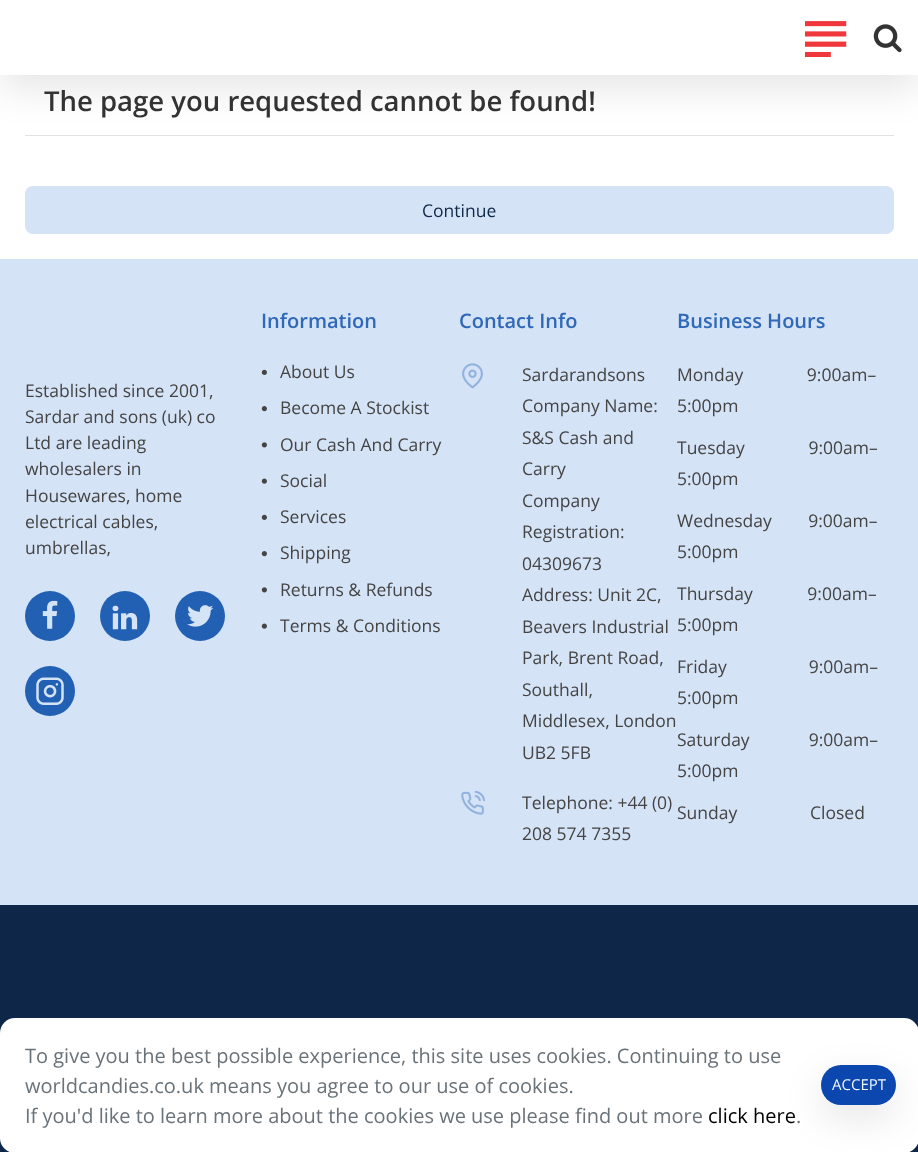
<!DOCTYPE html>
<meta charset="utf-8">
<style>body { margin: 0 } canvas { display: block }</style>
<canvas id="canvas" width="918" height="1152"></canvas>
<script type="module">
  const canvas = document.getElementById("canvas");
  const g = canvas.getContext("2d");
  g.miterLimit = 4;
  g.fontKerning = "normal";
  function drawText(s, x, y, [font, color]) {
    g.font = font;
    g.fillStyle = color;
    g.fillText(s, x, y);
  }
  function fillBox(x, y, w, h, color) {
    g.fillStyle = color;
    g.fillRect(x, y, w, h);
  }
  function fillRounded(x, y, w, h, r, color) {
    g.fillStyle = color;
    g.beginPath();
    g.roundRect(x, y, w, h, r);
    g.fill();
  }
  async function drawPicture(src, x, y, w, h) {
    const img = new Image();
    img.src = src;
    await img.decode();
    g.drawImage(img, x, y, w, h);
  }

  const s1 = ["600 27.5px Open Sans", "#333333"];
  const s2 = ["17.5px Open Sans", "#112849"];
  const s3 = ["17.5px Open Sans", "#444444"];
  const s4 = ["600 20px Open Sans", "#2E68B7"];
  const s5 = ["20px Open Sans", "#697278"];
  const s6 = ["20px Open Sans", "#000000"];
  const s7 = ["15px Open Sans", "#F1F8FF"];

  fillBox(0, 0, 918, 1152, "#FFFFFF");
  fillBox(25, 135, 869, 1, "#E2E2E2");
  g.fillStyle = "rgba(0, 0, 0, 0.1)";
  g.filter = "blur(19px)";
  g.beginPath();
  g.rect(0, -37, 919, 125);
  g.fill();
  g.filter = "none";
  fillBox(0, 0, 918, 75, "#FFFFFF");
  await drawPicture("pic1.png", 805, 21, 42, 36);
  await drawPicture("pic2.png", 873, 24, 29, 29);
  drawText("The page you requested cannot be found!", 44, 111, s1);
  fillRounded(25, 186, 869, 48, 8, "#D5E3F7");
  drawText("Continue", 422, 217, s2);
  fillBox(0, 259, 918, 646, "#D5E3F7");
  drawText("Established since 2001,", 25, 397, s3);
  drawText("Sardar and sons (uk) co", 25, 423, s3);
  drawText("Ltd are leading", 25, 449, s3);
  drawText("wholesalers in", 25, 475, s3);
  drawText("Housewares, home", 25, 502, s3);
  drawText("electrical cables,", 25, 528, s3);
  drawText("umbrellas,", 25, 554, s3);
  g.fillStyle = "#2260B3";
  g.beginPath();
  g.arc(50, 616, 25, 0, Math.PI * 2);
  g.fill();
  await drawPicture("pic3.png", 42, 600, 16, 29);
  g.beginPath();
  g.arc(125, 616, 25, 0, Math.PI * 2);
  g.fill();
  await drawPicture("pic4.png", 112, 605, 26, 25);
  g.beginPath();
  g.arc(200, 616, 25, 0, Math.PI * 2);
  g.fill();
  await drawPicture("pic5.png", 187, 605, 27, 22);
  g.beginPath();
  g.arc(50, 691, 25, 0, Math.PI * 2);
  g.fill();
  await drawPicture("pic6.png", 36, 677, 28, 28);
  drawText("Information", 261, 328, s4);
  await drawPicture("pic7.png", 261, 369, 6, 6);
  drawText("About Us", 280, 378, s3);
  await drawPicture("pic8.png", 261, 406, 6, 6);
  drawText("Become A Stockist", 280, 414, s3);
  await drawPicture("pic9.png", 261, 442, 6, 6);
  drawText("Our Cash And Carry", 280, 451, s3);
  await drawPicture("pic10.png", 261, 478, 6, 6);
  drawText("Social", 280, 487, s3);
  await drawPicture("pic7.png", 261, 514, 6, 6);
  drawText("Services", 280, 523, s3);
  await drawPicture("pic8.png", 261, 551, 6, 6);
  drawText("Shipping", 280, 559, s3);
  await drawPicture("pic9.png", 261, 587, 6, 6);
  drawText("Returns & Refunds", 280, 596, s3);
  await drawPicture("pic10.png", 261, 623, 6, 6);
  drawText("Terms & Conditions", 280, 632, s3);
  drawText("Contact Info", 459, 328, s4);
  await drawPicture("pic11.png", 462, 363, 21, 26);
  drawText("Sardarandsons", 522, 381, s3);
  drawText("Company Name:", 522, 412, s3);
  drawText("S&S Cash and", 522, 444, s3);
  drawText("Carry", 522, 475, s3);
  drawText("Company", 522, 507, s3);
  drawText("Registration:", 522, 538, s3);
  drawText("04309673", 522, 570, s3);
  drawText("Address: Unit 2C,", 522, 601, s3);
  drawText("Beavers Industrial", 522, 633, s3);
  drawText("Park, Brent Road,", 522, 664, s3);
  drawText("Southall,", 522, 696, s3);
  drawText("Middlesex, London", 522, 727, s3);
  drawText("UB2 5FB", 522, 759, s3);
  await drawPicture("pic12.png", 461, 790, 24, 25);
  drawText("Telephone: +44 (0)", 522, 809, s3);
  drawText("208 574 7355", 522, 840, s3);
  drawText("Business Hours", 677, 328, s4);
  drawText("Monday              9:00am–", 677, 381, s3);
  drawText("5:00pm", 677, 412, s3);
  drawText("Tuesday              9:00am–", 677, 454, s3);
  drawText("5:00pm", 677, 485, s3);
  drawText("Wednesday        9:00am–", 677, 527, s3);
  drawText("5:00pm", 677, 558, s3);
  drawText("Thursday            9:00am–", 677, 600, s3);
  drawText("5:00pm", 677, 631, s3);
  drawText("Friday                  9:00am–", 677, 673, s3);
  drawText("5:00pm", 677, 704, s3);
  drawText("Saturday             9:00am–", 677, 746, s3);
  drawText("5:00pm", 677, 777, s3);
  drawText("Sunday                Closed", 677, 819, s3);
  fillBox(0, 905, 918, 247, "#0E2749");
  fillRounded(0, 1018, 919, 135, 15, "#FFFFFF");
  drawText("To give you the best possible experience, this site uses cookies. Continuing to use", 25, 1063, s5);
  drawText("worldcandies.co.uk means you agree to our use of cookies.", 25, 1093, s5);
  drawText("If you'd like to learn more about the cookies we use please find out more", 25, 1123, s5);
  drawText("click here", 708, 1123, s6);
  drawText(".", 796, 1123, s5);
  g.fillStyle = "rgba(0, 0, 0, 0.1)";
  g.filter = "blur(19px)";
  g.beginPath();
  g.roundRect(821, 1078, 75, 40, 20);
  g.fill();
  g.filter = "none";
  fillRounded(821, 1065, 75, 40, 20, "#0B47AF");
  drawText("ACCEPT", 832, 1090, s7);
</script>
